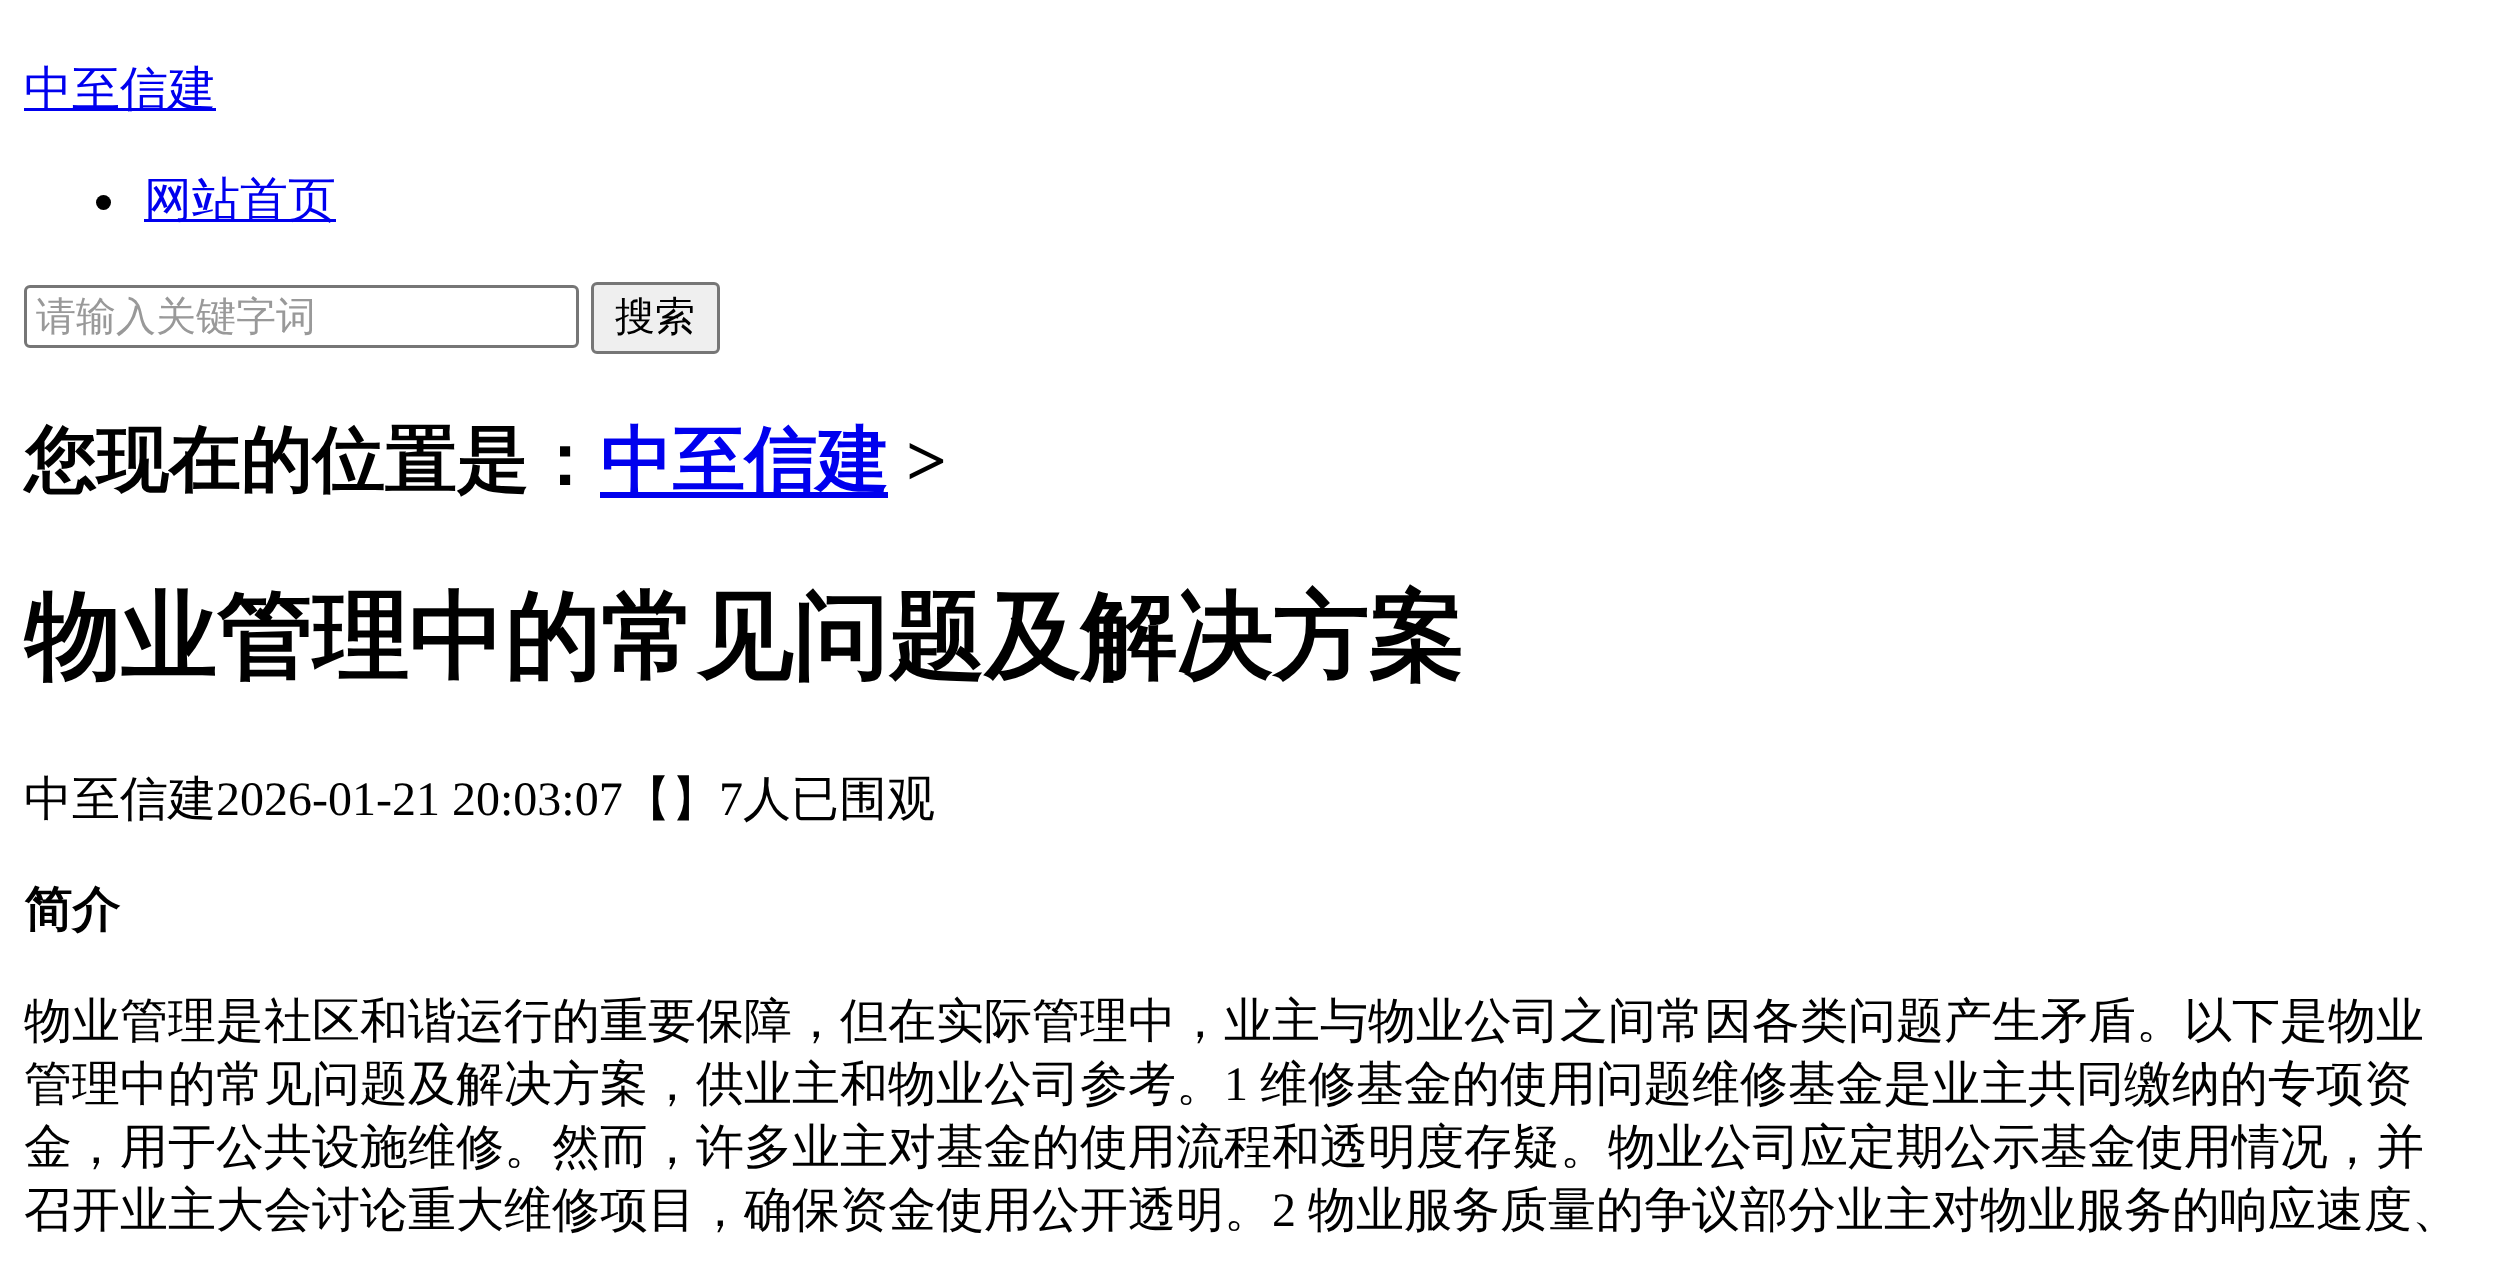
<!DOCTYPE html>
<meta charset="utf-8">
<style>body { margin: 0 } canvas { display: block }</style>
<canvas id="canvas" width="2493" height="1276"></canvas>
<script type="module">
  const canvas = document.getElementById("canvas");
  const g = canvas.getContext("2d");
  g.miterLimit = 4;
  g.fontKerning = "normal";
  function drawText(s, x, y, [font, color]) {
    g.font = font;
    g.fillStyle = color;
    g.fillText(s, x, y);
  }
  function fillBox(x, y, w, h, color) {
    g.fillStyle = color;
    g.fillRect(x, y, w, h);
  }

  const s1 = ["500 48px WenQuanYi Zen Hei", "#0000EE"];
  const s2 = ["500 40px WenQuanYi Zen Hei", "#999999"];
  const s3 = ["500 40px WenQuanYi Zen Hei", "#000000"];
  const s4 = ["bold 72px WenQuanYi Zen Hei", "#000000"];
  const s5 = ["bold 72px WenQuanYi Zen Hei", "#0000EE"];
  const s6 = ["bold 72px Liberation Serif", "#000000"];
  const s7 = ["bold 96px WenQuanYi Zen Hei", "#000000"];
  const s8 = ["500 48px WenQuanYi Zen Hei", "#000000"];
  const s9 = ["48px Liberation Serif", "#000000"];
  const s10 = ["bold 48px WenQuanYi Zen Hei", "#000000"];

  fillBox(0, 0, 2493, 1276, "#FFFFFF");
  fillBox(24, 108, 192, 3, "#0000EE");
  drawText("中至信建", 24, 105, s1);
  g.fillStyle = "#000000";
  g.beginPath();
  g.arc(103.5, 202.5, 7.5, 0, Math.PI * 2);
  g.fill();
  fillBox(144, 219, 192, 3, "#0000EE");
  drawText("网站首页", 144, 216, s1);
  g.beginPath();
  g.roundRect(25.5, 286.5, 552, 60, 4.5);
  g.strokeStyle = "#767676";
  g.lineWidth = 3;
  g.stroke();
  drawText("请输入关键字词", 36, 330, s2);
  g.fillStyle = "#EFEFEF";
  g.beginPath();
  g.roundRect(592.5, 283.5, 126, 69, 4.5);
  g.fill();
  g.stroke();
  drawText("搜索", 615, 330, s3);
  drawText("您现在的位置是：", 24, 485, s4);
  fillBox(600, 492, 288, 6, "#0000EE");
  drawText("中至信建", 600, 485, s5);
  drawText(">", 906, 485, s6);
  drawText("物业管理中的常见问题及解决方案", 24, 670, s7);
  drawText("中至信建", 24, 815, s8);
  drawText("2026-01-21 20:03:07", 216, 815, s9);
  drawText("【】", 623, 815, s8);
  drawText("7", 719, 815, s9);
  drawText("人已围观", 743, 815, s8);
  drawText("简介", 24, 926, s10);
  drawText("物业管理是社区和谐运行的重要保障，但在实际管理中，业主与物业公司之间常因各类问题产生矛盾。以下是物业", 24, 1037, s8);
  drawText("管理中的常见问题及解决方案，供业主和物业公司参考。", 24, 1100, s8);
  drawText("1", 1224, 1100, s9);
  drawText("维修基金的使用问题维修基金是业主共同缴纳的专项资", 1260, 1100, s8);
  drawText("金，用于公共设施维修。然而，许多业主对基金的使用流程和透明度存疑。物业公司应定期公示基金使用情况，并", 24, 1163, s8);
  drawText("召开业主大会讨论重大维修项目，确保资金使用公开透明。", 24, 1226, s8);
  drawText("2", 1272, 1226, s9);
  drawText("物业服务质量的争议部分业主对物业服务的响应速度、", 1308, 1226, s8);
</script>
